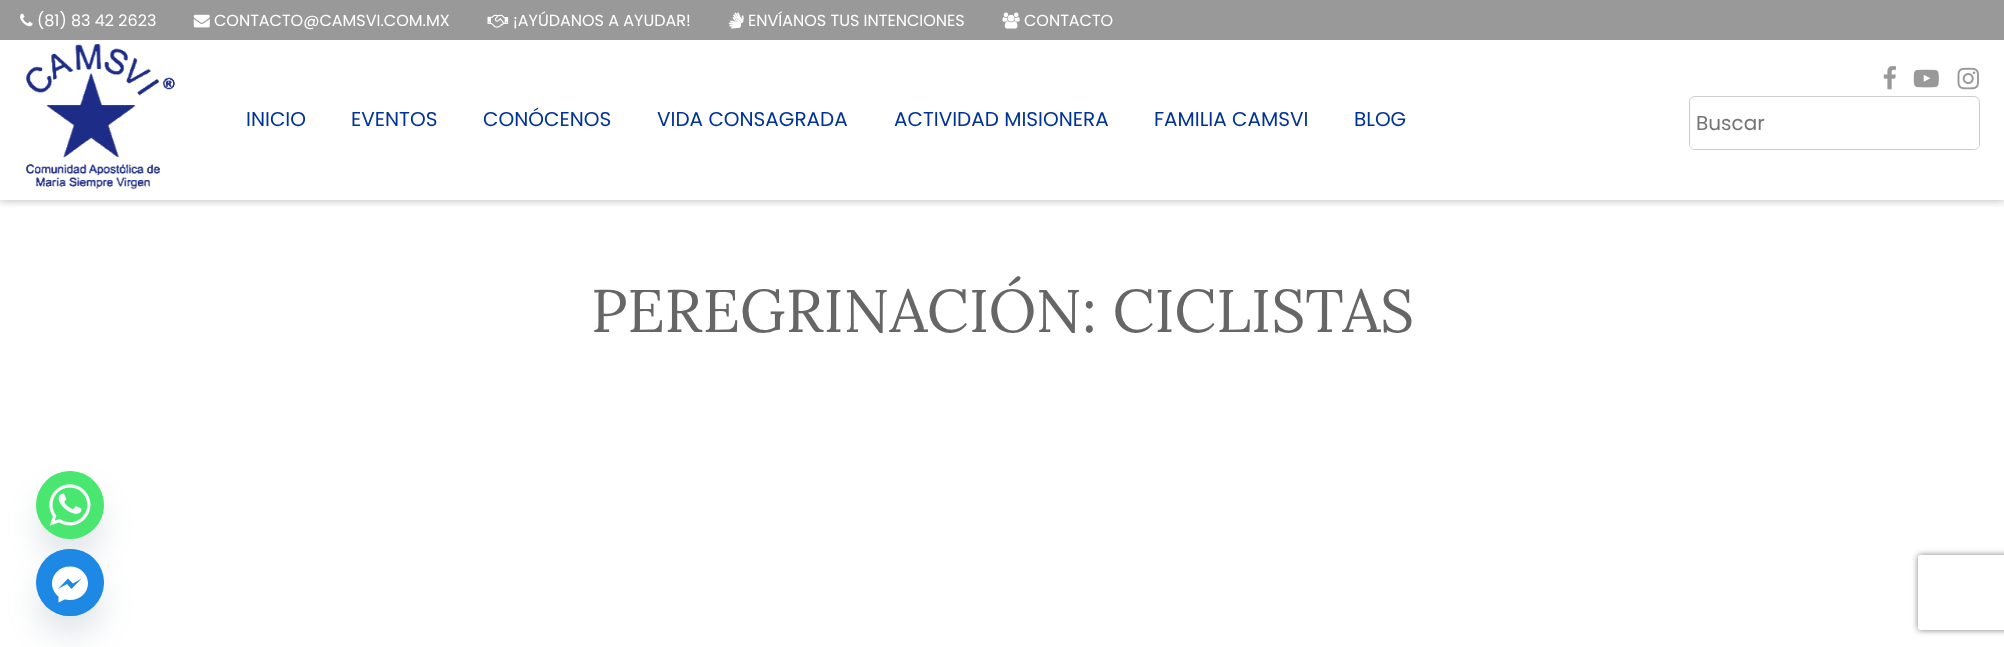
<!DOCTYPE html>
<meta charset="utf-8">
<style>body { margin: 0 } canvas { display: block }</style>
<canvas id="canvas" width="2004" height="647"></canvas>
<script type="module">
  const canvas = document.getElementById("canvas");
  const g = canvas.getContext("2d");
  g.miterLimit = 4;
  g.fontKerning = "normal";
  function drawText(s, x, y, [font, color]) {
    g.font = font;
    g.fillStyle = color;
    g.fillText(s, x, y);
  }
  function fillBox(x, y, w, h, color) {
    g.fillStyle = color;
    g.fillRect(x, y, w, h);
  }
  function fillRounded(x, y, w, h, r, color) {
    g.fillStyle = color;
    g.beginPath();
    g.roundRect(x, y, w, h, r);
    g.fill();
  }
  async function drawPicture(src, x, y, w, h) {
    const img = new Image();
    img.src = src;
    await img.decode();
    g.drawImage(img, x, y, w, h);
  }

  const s1 = ["16px Poppins", "#FFFFFF"];
  const s2 = ["20px Poppins", "#003399"];
  const s3 = ["20px Poppins", "#757575"];
  const s4 = ["60.2px Lora", "#666666"];

  fillBox(0, 0, 2004, 647, "#FFFFFF");
  g.save();
  g.beginPath();
  g.rect(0, 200, 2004, 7);
  g.clip();
  g.fillStyle = "rgba(0, 0, 0, 0.3)";
  g.filter = "blur(5px)";
  g.beginPath();
  g.rect(0, 0, 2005, 200);
  g.fill();
  g.filter = "none";
  g.restore();
  fillBox(0, 0, 2004, 40, "#999999");
  await drawPicture("pic1.png", 20, 13, 13, 14);
  drawText("(81) 83 42 2623", 37, 26, s1);
  await drawPicture("pic2.png", 193, 14, 17, 14);
  drawText("CONTACTO@CAMSVI.COM.MX", 214, 26, s1);
  await drawPicture("pic3.png", 487, 14, 22, 14);
  drawText("¡AYÚDANOS A AYUDAR!", 513, 26, s1);
  await drawPicture("pic4.png", 728, 12, 16, 17);
  drawText("ENVÍANOS TUS INTENCIONES", 748, 26, s1);
  await drawPicture("pic5.png", 1002, 12, 18, 17);
  drawText("CONTACTO", 1024, 26, s1);
  await drawPicture("pic6.png", 26, 44, 149, 146);
  drawText("INICIO", 246, 126, s2);
  drawText("EVENTOS", 351, 126, s2);
  drawText("CONÓCENOS", 483, 126, s2);
  drawText("VIDA CONSAGRADA", 657, 126, s2);
  drawText("ACTIVIDAD MISIONERA", 894, 126, s2);
  drawText("FAMILIA CAMSVI", 1154, 126, s2);
  drawText("BLOG", 1354, 126, s2);
  await drawPicture("pic7.png", 1883, 66, 13, 24);
  await drawPicture("pic8.png", 1913, 69, 26, 19);
  await drawPicture("pic9.png", 1957, 67, 22, 23);
  g.beginPath();
  g.roundRect(1689.5, 96.5, 290, 53, 5.5);
  g.strokeStyle = "#CCCCCC";
  g.stroke();
  fillRounded(1690, 98, 289, 51, 5, "#FFFFFF");
  drawText("Buscar", 1696, 130, s3);
  drawText("PEREGRINACIÓN: CICLISTAS", 591, 332, s4);
  g.fillStyle = "rgba(73, 104, 126, 0.16)";
  g.filter = "blur(15px)";
  g.beginPath();
  g.roundRect(36, 491, 68, 68, 34);
  g.fill();
  g.filter = "none";
  g.fillStyle = "#49E670";
  g.beginPath();
  g.arc(70, 505, 34, 0, Math.PI * 2);
  g.fill();
  await drawPicture("pic10.png", 36, 471, 68, 68);
  g.fillStyle = "rgba(73, 104, 126, 0.16)";
  g.filter = "blur(15px)";
  g.beginPath();
  g.roundRect(36, 569, 68, 67, 33.5);
  g.fill();
  g.filter = "none";
  fillRounded(36, 549, 68, 67, 33.5, "#1E88E5");
  g.beginPath();
  g.arc(70, 582.5, 33.5, 0, Math.PI * 2);
  g.fill();
  g.fillStyle = "#FFFFFF";
  g.beginPath();
  g.moveTo(52, 583.5);
  g.bezierCurveTo(52, 574, 60, 566.5, 70, 566.5);
  g.bezierCurveTo(80, 566.5, 88, 574, 88, 583.5);
  g.bezierCurveTo(88, 592.5, 80, 600, 70, 600);
  g.bezierCurveTo(68, 600, 66.5, 599.5, 64.5, 599.5);
  g.lineTo(58.5, 602.5);
  g.lineTo(58.5, 596.5);
  g.bezierCurveTo(54.5, 593, 52, 588.5, 52, 583.5);
  g.closePath();
  g.moveTo(67, 584);
  g.lineTo(71.5, 589);
  g.lineTo(81.5, 578.5);
  g.lineTo(73, 583.5);
  g.lineTo(68, 578.5);
  g.lineTo(58, 589);
  g.closePath();
  g.fill("evenodd");
  g.save();
  g.beginPath();
  g.moveTo(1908, 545);
  g.lineTo(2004, 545);
  g.lineTo(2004, 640);
  g.lineTo(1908, 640);
  g.closePath();
  g.moveTo(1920.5, 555);
  g.lineTo(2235.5, 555);
  g.bezierCurveTo(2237, 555, 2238, 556, 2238, 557.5);
  g.lineTo(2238, 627.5);
  g.bezierCurveTo(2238, 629, 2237, 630, 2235.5, 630);
  g.lineTo(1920.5, 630);
  g.bezierCurveTo(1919, 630, 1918, 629, 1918, 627.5);
  g.lineTo(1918, 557.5);
  g.bezierCurveTo(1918, 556, 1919, 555, 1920.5, 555);
  g.closePath();
  g.clip("evenodd");
  g.fillStyle = "#808080";
  g.filter = "blur(3px)";
  g.beginPath();
  g.roundRect(1918, 555, 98, 75, 2.5);
  g.fill();
  g.filter = "none";
  g.restore();
</script>
